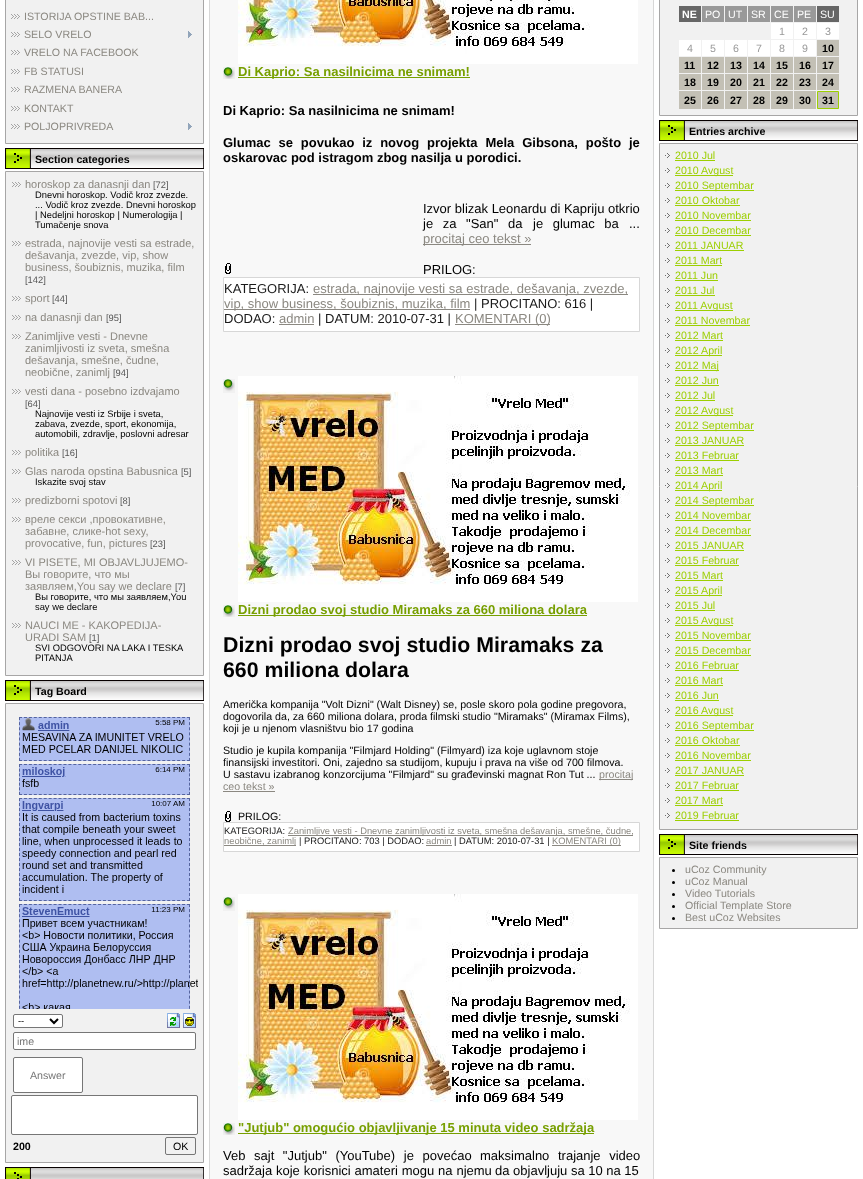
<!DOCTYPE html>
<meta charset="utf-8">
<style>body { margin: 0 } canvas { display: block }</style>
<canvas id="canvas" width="863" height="1179"></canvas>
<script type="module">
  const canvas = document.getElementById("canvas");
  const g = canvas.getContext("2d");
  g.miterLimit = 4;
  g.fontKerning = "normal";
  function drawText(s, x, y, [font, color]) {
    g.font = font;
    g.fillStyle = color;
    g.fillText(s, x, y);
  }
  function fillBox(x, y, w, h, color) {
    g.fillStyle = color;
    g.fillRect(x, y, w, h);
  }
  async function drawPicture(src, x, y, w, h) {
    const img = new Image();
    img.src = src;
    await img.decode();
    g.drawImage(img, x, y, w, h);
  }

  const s1 = ["10.65px Liberation Sans", "#8B8881"];
  const s2 = ["bold 10.65px Liberation Sans", "#000000"];
  const s3 = ["11px Liberation Sans", "#8B8881"];
  const s4 = ["9.35px Liberation Sans", "#555555"];
  const s5 = ["9.35px Liberation Sans", "#000000"];
  const s6 = ["10.65px Liberation Sans", "#757575"];
  const s7 = ["10.65px Liberation Sans", "#000000"];
  const s8 = ["bold 13px Liberation Sans", "#779F00"];
  const s9 = ["bold 13px Liberation Sans", "#000000"];
  const s10 = ["13px Liberation Sans", "#000000"];
  const s11 = ["13px Liberation Sans", "#8B8881"];
  const s12 = ["13px Liberation Sans", "#1A1A1A"];
  const s13 = ["bold 21.3px Liberation Sans", "#000000"];
  const s14 = ["9.35px Liberation Sans", "#1A1A1A"];
  const s15 = ["9.35px Liberation Sans", "#8B8881"];
  const s16 = ["bold 10.65px Liberation Sans", "#FFFFFF"];
  const s17 = ["10.65px Liberation Sans", "#FFFFFF"];
  const s18 = ["10.65px Liberation Sans", "#999999"];
  const s19 = ["10.65px Liberation Sans", "#9CCF00"];

  fillBox(0, 0, 863, 1179, "#FFFFFF");
  g.fillStyle = "#F1F1F1";
  g.beginPath();
  g.rect(5.5, -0.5, 198, 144);
  g.fill();
  g.strokeStyle = "#A7A6A6";
  g.stroke();
  await drawPicture("pic1.png", 11, 14, 9, 5);
  drawText("ISTORIJA OPSTINE BAB...", 24, 20, s1);
  await drawPicture("pic1.png", 11, 32, 9, 5);
  drawText("SELO VRELO", 24, 38, s1);
  await drawPicture("pic2.png", 188, 31, 4, 7);
  await drawPicture("pic1.png", 11, 50, 9, 5);
  drawText("VRELO NA FACEBOOK", 24, 56, s1);
  await drawPicture("pic1.png", 11, 69, 9, 5);
  drawText("FB STATUSI", 24, 75, s1);
  await drawPicture("pic1.png", 11, 87, 9, 5);
  drawText("RAZMENA BANERA", 24, 93, s1);
  await drawPicture("pic1.png", 11, 106, 9, 5);
  drawText("KONTAKT", 24, 112, s1);
  await drawPicture("pic1.png", 11, 124, 9, 5);
  drawText("POLJOPRIVREDA", 24, 130, s1);
  await drawPicture("pic2.png", 188, 123, 4, 7);
  await drawPicture("pic3.png", 5, 148, 199, 21);
  drawText("Section categories", 35, 163, s2);
  g.fillStyle = "#F1F1F1";
  g.beginPath();
  g.rect(5.5, 171.5, 198, 504);
  g.fill();
  g.stroke();
  await drawPicture("pic1.png", 12, 182, 9, 5);
  drawText("horoskop za danasnji dan", 25, 188, s3);
  drawText("[72]", 153, 188, s4);
  drawText("Dnevni horoskop. Vodič kroz zvezde.", 35, 198, s5);
  drawText("... Vodič kroz zvezde. Dnevni horoskop", 35, 208, s5);
  drawText("| Nedeljni horoskop | Numerologija |", 35, 218, s5);
  drawText("Tumačenje snova", 35, 228, s5);
  await drawPicture("pic1.png", 12, 241, 9, 5);
  drawText("estrada, najnovije vesti sa estrade,", 25, 247, s3);
  drawText("dešavanja, zvezde, vip, show", 25, 259, s3);
  drawText("business, šoubiznis, muzika, film", 25, 271, s3);
  drawText("[142]", 25, 283, s4);
  await drawPicture("pic1.png", 12, 296, 9, 5);
  drawText("sport", 25, 302, s3);
  drawText("[44]", 52, 302, s4);
  await drawPicture("pic1.png", 12, 315, 9, 5);
  drawText("na danasnji dan", 25, 321, s3);
  drawText("[95]", 106, 321, s4);
  await drawPicture("pic1.png", 12, 334, 9, 5);
  drawText("Zanimljive vesti - Dnevne", 25, 340, s3);
  drawText("zanimljivosti iz sveta, smešna", 25, 352, s3);
  drawText("dešavanja, smešne, čudne,", 25, 364, s3);
  drawText("neobične, zanimlj", 25, 376, s3);
  drawText("[94]", 113, 376, s4);
  await drawPicture("pic1.png", 12, 389, 9, 5);
  drawText("vesti dana - posebno izdvajamo", 25, 395, s3);
  drawText("[64]", 25, 407, s4);
  drawText("Najnovije vesti iz Srbije i sveta,", 35, 417, s5);
  drawText("zabava, zvezde, sport, ekonomija,", 35, 427, s5);
  drawText("automobili, zdravlje, poslovni adresar", 35, 437, s5);
  await drawPicture("pic1.png", 12, 450, 9, 5);
  drawText("politika", 25, 456, s3);
  drawText("[16]", 62, 456, s4);
  await drawPicture("pic1.png", 12, 469, 9, 5);
  drawText("Glas naroda opstina Babusnica", 25, 475, s3);
  drawText("[5]", 181, 475, s4);
  drawText("Iskazite svoj stav", 35, 485, s5);
  await drawPicture("pic1.png", 12, 498, 9, 5);
  drawText("predizborni spotovi", 25, 504, s3);
  drawText("[8]", 120, 504, s4);
  await drawPicture("pic1.png", 12, 517, 9, 5);
  drawText("вреле секси ,провокативне,", 25, 523, s3);
  drawText("забавне, слике-hot sexy,", 25, 535, s3);
  drawText("provocative, fun, pictures", 25, 547, s3);
  drawText("[23]", 150, 547, s4);
  await drawPicture("pic1.png", 12, 560, 9, 5);
  drawText("VI PISETE, MI OBJAVLJUJEMO-", 25, 566, s3);
  drawText("Вы говорите, что мы", 25, 578, s3);
  drawText("заявляем,You say we declare", 25, 590, s3);
  drawText("[7]", 175, 590, s4);
  drawText("Вы говорите, что мы заявляем,You", 35, 600, s5);
  drawText("say we declare", 35, 610, s5);
  await drawPicture("pic1.png", 12, 623, 9, 5);
  drawText("NAUCI ME - KAKOPEDIJA-", 25, 629, s3);
  drawText("URADI SAM", 25, 641, s3);
  drawText("[1]", 89, 641, s4);
  drawText("SVI ODGOVORI NA LAKA I TESKA", 35, 651, s5);
  drawText("PITANJA", 35, 661, s5);
  await drawPicture("pic3.png", 5, 680, 199, 21);
  drawText("Tag Board", 35, 695, s2);
  g.fillStyle = "#F1F1F1";
  g.beginPath();
  g.rect(5.5, 703.5, 198, 459);
  g.fill();
  g.stroke();
  await drawPicture("pic4.png", 19, 717, 179, 292);
  g.fillStyle = "#FFFFFF";
  g.beginPath();
  g.roundRect(13.5, 1014.5, 49, 13, 1.5);
  g.fill();
  g.strokeStyle = "#767676";
  g.stroke();
  g.beginPath();
  g.moveTo(50, 1019);
  g.lineTo(54, 1023);
  g.lineTo(58, 1019);
  g.strokeStyle = "#000000";
  g.lineWidth = 2;
  g.stroke();
  drawText("--", 18, 1024, s5);
  await drawPicture("pic5.png", 167, 1013, 13, 15);
  await drawPicture("pic6.png", 183, 1013, 13, 15);
  g.fillStyle = "#FFFFFF";
  g.beginPath();
  g.roundRect(13.5, 1032.5, 182, 17, 1.5);
  g.fill();
  g.strokeStyle = "#767676";
  g.lineWidth = 1;
  g.stroke();
  drawText("ime", 17, 1045, s6);
  g.fillStyle = "#FFFFFF";
  g.beginPath();
  g.roundRect(13.5, 1057.5, 69, 35, 1.5);
  g.fill();
  g.stroke();
  drawText("Answer", 30, 1079, s6);
  g.fillStyle = "#FFFFFF";
  g.beginPath();
  g.roundRect(11.5, 1095.5, 186, 39, 1.5);
  g.fill();
  g.stroke();
  drawText("200", 13, 1150, s2);
  g.beginPath();
  g.roundRect(165.5, 1137.5, 30, 17, 1.5);
  g.stroke();
  drawText("OK", 173, 1150, s7);
  await drawPicture("pic7.png", 5, 1167, 199, 12);
  g.strokeStyle = "#D7D7D7";
  g.strokeRect(209.5, -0.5, 444, 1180);
  fillBox(210, 0, 443, 1179, "#F8F8F8");
  await drawPicture("pic8.png", 238, 0, 400, 64);
  await drawPicture("pic9.png", 223, 67, 12, 12);
  fillBox(238, 77, 232, 1, "#779F00");
  drawText("Di Kaprio: Sa nasilnicima ne snimam!", 238, 76, s8);
  drawText("Di Kaprio: Sa nasilnicima ne snimam!", 223, 115, s9);
  g.wordSpacing = "4.25px";
  drawText("Glumac se povukao iz novog projekta Mela Gibsona, pošto je", 223, 147, s9);
  g.wordSpacing = "0px";
  drawText("oskarovac pod istragom zbog nasilja u porodici.", 223, 162, s9);
  drawText("Izvor blizak Leonardu di Kapriju otkrio", 423, 213, s10);
  g.wordSpacing = "6px";
  drawText("je za \"San\" da", 423, 228, s10);
  drawText("je glumac ba", 533, 228, s10);
  g.wordSpacing = "0px";
  drawText("...", 629, 228, s10);
  fillBox(423, 244, 108, 1, "#8B8881");
  drawText("procitaj ceo tekst »", 423, 243, s11);
  await drawPicture("pic10.png", 225, 263, 6, 11);
  drawText("PRILOG:", 423, 274, s10);
  g.fillStyle = "#FFFFFF";
  g.beginPath();
  g.rect(223.5, 277.5, 416, 54);
  g.fill();
  g.stroke();
  drawText("KATEGORIJA:", 224, 293, s12);
  fillBox(313, 294, 315, 1, "#8B8881");
  drawText("estrada, najnovije vesti sa estrade, dešavanja, zvezde,", 313, 293, s11);
  fillBox(224, 309, 246, 1, "#8B8881");
  drawText("vip, show business, šoubiznis, muzika, film", 224, 308, s11);
  drawText("| PROCITANO: 616 |", 474, 308, s12);
  drawText("DODAO:", 224, 323, s12);
  drawText("admin", 279, 323, s11);
  fillBox(279, 324, 35, 1, "#8B8881");
  drawText("| DATUM: 2010-07-31 |", 318, 323, s12);
  fillBox(455, 324, 95, 1, "#8B8881");
  drawText("KOMENTARI (0)", 455, 323, s11);
  await drawPicture("pic11.png", 223, 379, 12, 14);
  await drawPicture("pic12.png", 238, 376, 400, 226);
  await drawPicture("pic9.png", 223, 605, 12, 12);
  fillBox(238, 615, 349, 1, "#779F00");
  drawText("Dizni prodao svoj studio Miramaks za 660 miliona dolara", 238, 614, s8);
  drawText("Dizni prodao svoj studio Miramaks za", 223, 652, s13);
  drawText("660 miliona dolara", 223, 677, s13);
  drawText("Američka kompanija \"Volt Dizni\" (Walt Disney) se, posle skoro pola godine pregovora,", 223, 708, s7);
  drawText("dogovorila da, za 660 miliona dolara, proda filmski studio \"Miramaks\" (Miramax Films),", 223, 720, s7);
  drawText("koji je u njenom vlasništvu bio 17 godina", 223, 732, s7);
  drawText("Studio je kupila kompanija \"Filmjard Holding\" (Filmyard) iza koje uglavnom stoje", 223, 754, s7);
  drawText("finansijski investitori. Oni, zajedno sa studijom, kupuju i prava na više od 700 filmova.", 223, 766, s7);
  drawText("U sastavu izabranog konzorcijuma \"Filmjard\" su građevinski magnat Ron Tut ...", 223, 778, s7);
  fillBox(599, 779, 34, 1, "#8B8881");
  drawText("procitaj", 599, 778, s1);
  drawText("ceo tekst »", 223, 790, s1);
  fillBox(223, 791, 52, 1, "#8B8881");
  await drawPicture("pic10.png", 225, 811, 6, 11);
  drawText("PRILOG:", 238, 820, s7);
  g.fillStyle = "#FFFFFF";
  g.beginPath();
  g.rect(223.5, 822.5, 416, 29);
  g.fill();
  g.stroke();
  drawText("KATEGORIJA:", 224, 834, s14);
  fillBox(288, 835, 345, 1, "#8B8881");
  drawText("Zanimljive vesti - Dnevne zanimljivosti iz sveta, smešna dešavanja, smešne, čudne,", 288, 834, s15);
  fillBox(224, 845, 72, 1, "#8B8881");
  drawText("neobične, zanimlj", 224, 844, s15);
  drawText("| PROCITANO: 703 | DODAO:", 299, 844, s14);
  drawText("admin", 426, 844, s15);
  fillBox(426, 845, 26, 1, "#8B8881");
  drawText("| DATUM: 2010-07-31 |", 454, 844, s14);
  fillBox(552, 845, 69, 1, "#8B8881");
  drawText("KOMENTARI (0)", 552, 844, s15);
  await drawPicture("pic11.png", 223, 897, 12, 14);
  await drawPicture("pic12.png", 238, 894, 400, 226);
  await drawPicture("pic9.png", 223, 1123, 12, 12);
  fillBox(238, 1133, 356, 1, "#779F00");
  drawText("\"Jutjub\" omogućio objavljivanje 15 minuta video sadržaja", 238, 1132, s8);
  g.wordSpacing = "5px";
  drawText("Veb sajt \"Jutjub\" (YouTube) je povećao", 223, 1160, s10);
  drawText("maksimalno trajanje video", 480, 1160, s10);
  g.wordSpacing = "0.25px";
  drawText("sadržaja koje korisnici amateri mogu na njemu", 223, 1175, s10);
  g.wordSpacing = "0px";
  drawText("da objavljuju sa 10 na 15", 495, 1175, s10);
  g.fillStyle = "#F1F1F1";
  g.beginPath();
  g.rect(659.5, -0.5, 198, 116);
  g.fill();
  g.strokeStyle = "#A7A6A6";
  g.stroke();
  fillBox(679, 6, 22, 16, "#666666");
  drawText("NE", 682, 18, s16);
  fillBox(702, 6, 22, 16, "#999999");
  drawText("PO", 705, 18, s17);
  fillBox(725, 6, 22, 16, "#999999");
  drawText("UT", 728, 18, s17);
  fillBox(748, 6, 22, 16, "#999999");
  drawText("SR", 751, 18, s17);
  fillBox(771, 6, 22, 16, "#999999");
  drawText("CE", 774, 18, s17);
  fillBox(794, 6, 22, 16, "#999999");
  drawText("PE", 797, 18, s17);
  fillBox(817, 6, 22, 16, "#666666");
  drawText("SU", 820, 18, s17);
  fillBox(771, 23, 22, 16, "#FFFFFF");
  drawText("1", 779, 35, s18);
  fillBox(794, 23, 22, 16, "#FFFFFF");
  drawText("2", 802, 35, s18);
  fillBox(817, 23, 22, 16, "#FFFFFF");
  drawText("3", 825, 35, s18);
  fillBox(679, 40, 22, 16, "#FFFFFF");
  drawText("4", 687, 52, s18);
  fillBox(702, 40, 22, 16, "#FFFFFF");
  drawText("5", 710, 52, s18);
  fillBox(725, 40, 22, 16, "#FFFFFF");
  drawText("6", 733, 52, s18);
  fillBox(748, 40, 22, 16, "#FFFFFF");
  drawText("7", 756, 52, s18);
  fillBox(771, 40, 22, 16, "#FFFFFF");
  drawText("8", 779, 52, s18);
  fillBox(794, 40, 22, 16, "#FFFFFF");
  drawText("9", 802, 52, s18);
  fillBox(817, 40, 22, 16, "#C3C0B5");
  drawText("10", 822, 52, s2);
  fillBox(679, 57, 22, 16, "#C3C0B5");
  drawText("11", 684, 69, s2);
  fillBox(702, 57, 22, 16, "#C3C0B5");
  drawText("12", 707, 69, s2);
  fillBox(725, 57, 22, 16, "#C3C0B5");
  drawText("13", 730, 69, s2);
  fillBox(748, 57, 22, 16, "#C3C0B5");
  drawText("14", 753, 69, s2);
  fillBox(771, 57, 22, 16, "#C3C0B5");
  drawText("15", 776, 69, s2);
  fillBox(794, 57, 22, 16, "#C3C0B5");
  drawText("16", 799, 69, s2);
  fillBox(817, 57, 22, 16, "#C3C0B5");
  drawText("17", 822, 69, s2);
  fillBox(679, 74, 22, 16, "#C3C0B5");
  drawText("18", 684, 86, s2);
  fillBox(702, 74, 22, 16, "#C3C0B5");
  drawText("19", 707, 86, s2);
  fillBox(725, 74, 22, 16, "#C3C0B5");
  drawText("20", 730, 86, s2);
  fillBox(748, 74, 22, 16, "#C3C0B5");
  drawText("21", 753, 86, s2);
  fillBox(771, 74, 22, 16, "#C3C0B5");
  drawText("22", 776, 86, s2);
  fillBox(794, 74, 22, 16, "#C3C0B5");
  drawText("23", 799, 86, s2);
  fillBox(817, 74, 22, 16, "#C3C0B5");
  drawText("24", 822, 86, s2);
  fillBox(679, 91, 22, 18, "#C3C0B5");
  drawText("25", 684, 104, s2);
  fillBox(702, 91, 22, 18, "#C3C0B5");
  drawText("26", 707, 104, s2);
  fillBox(725, 91, 22, 18, "#C3C0B5");
  drawText("27", 730, 104, s2);
  fillBox(748, 91, 22, 18, "#C3C0B5");
  drawText("28", 753, 104, s2);
  fillBox(771, 91, 22, 18, "#C3C0B5");
  drawText("29", 776, 104, s2);
  fillBox(794, 91, 22, 18, "#C3C0B5");
  drawText("30", 799, 104, s2);
  g.fillStyle = "#C3C0B5";
  g.beginPath();
  g.rect(817.5, 91.5, 21, 17);
  g.fill();
  g.strokeStyle = "#9CCF00";
  g.stroke();
  drawText("31", 822, 104, s2);
  await drawPicture("pic3.png", 659, 120, 199, 21);
  drawText("Entries archive", 689, 135, s2);
  g.fillStyle = "#F1F1F1";
  g.beginPath();
  g.rect(659.5, 143.5, 198, 686);
  g.fill();
  g.strokeStyle = "#A7A6A6";
  g.stroke();
  await drawPicture("pic13.png", 665, 153, 5, 5);
  drawText("2010 Jul", 675, 159, s19);
  fillBox(675, 160, 40, 1, "#9CCF00");
  await drawPicture("pic13.png", 665, 168, 5, 5);
  fillBox(675, 175, 58, 1, "#9CCF00");
  drawText("2010 Avgust", 675, 174, s19);
  await drawPicture("pic13.png", 665, 183, 5, 5);
  fillBox(675, 190, 79, 1, "#9CCF00");
  drawText("2010 Septembar", 675, 189, s19);
  await drawPicture("pic13.png", 665, 198, 5, 5);
  drawText("2010 Oktobar", 675, 204, s19);
  fillBox(675, 205, 65, 1, "#9CCF00");
  await drawPicture("pic13.png", 665, 213, 5, 5);
  drawText("2010 Novembar", 675, 219, s19);
  fillBox(675, 220, 76, 1, "#9CCF00");
  await drawPicture("pic13.png", 665, 228, 5, 5);
  drawText("2010 Decembar", 675, 234, s19);
  fillBox(675, 235, 76, 1, "#9CCF00");
  await drawPicture("pic13.png", 665, 243, 5, 5);
  drawText("2011 JANUAR", 675, 249, s19);
  fillBox(675, 250, 69, 1, "#9CCF00");
  await drawPicture("pic13.png", 665, 258, 5, 5);
  drawText("2011 Mart", 675, 264, s19);
  fillBox(675, 265, 47, 1, "#9CCF00");
  await drawPicture("pic13.png", 665, 273, 5, 5);
  drawText("2011 Jun", 675, 279, s19);
  fillBox(675, 280, 43, 1, "#9CCF00");
  await drawPicture("pic13.png", 665, 288, 5, 5);
  drawText("2011 Jul", 675, 294, s19);
  fillBox(675, 295, 40, 1, "#9CCF00");
  await drawPicture("pic13.png", 665, 303, 5, 5);
  fillBox(675, 310, 58, 1, "#9CCF00");
  drawText("2011 Avgust", 675, 309, s19);
  await drawPicture("pic13.png", 665, 318, 5, 5);
  drawText("2011 Novembar", 675, 324, s19);
  fillBox(675, 325, 75, 1, "#9CCF00");
  await drawPicture("pic13.png", 665, 333, 5, 5);
  drawText("2012 Mart", 675, 339, s19);
  fillBox(675, 340, 48, 1, "#9CCF00");
  await drawPicture("pic13.png", 665, 348, 5, 5);
  fillBox(675, 355, 47, 1, "#9CCF00");
  drawText("2012 April", 675, 354, s19);
  await drawPicture("pic13.png", 665, 363, 5, 5);
  fillBox(675, 370, 44, 1, "#9CCF00");
  drawText("2012 Maj", 675, 369, s19);
  await drawPicture("pic13.png", 665, 378, 5, 5);
  drawText("2012 Jun", 675, 384, s19);
  fillBox(675, 385, 44, 1, "#9CCF00");
  await drawPicture("pic13.png", 665, 393, 5, 5);
  drawText("2012 Jul", 675, 399, s19);
  fillBox(675, 400, 40, 1, "#9CCF00");
  await drawPicture("pic13.png", 665, 408, 5, 5);
  fillBox(675, 415, 58, 1, "#9CCF00");
  drawText("2012 Avgust", 675, 414, s19);
  await drawPicture("pic13.png", 665, 423, 5, 5);
  fillBox(675, 430, 79, 1, "#9CCF00");
  drawText("2012 Septembar", 675, 429, s19);
  await drawPicture("pic13.png", 665, 438, 5, 5);
  drawText("2013 JANUAR", 675, 444, s19);
  fillBox(675, 445, 69, 1, "#9CCF00");
  await drawPicture("pic13.png", 665, 453, 5, 5);
  drawText("2013 Februar", 675, 459, s19);
  fillBox(675, 460, 64, 1, "#9CCF00");
  await drawPicture("pic13.png", 665, 468, 5, 5);
  drawText("2013 Mart", 675, 474, s19);
  fillBox(675, 475, 48, 1, "#9CCF00");
  await drawPicture("pic13.png", 665, 483, 5, 5);
  fillBox(675, 490, 47, 1, "#9CCF00");
  drawText("2014 April", 675, 489, s19);
  await drawPicture("pic13.png", 665, 498, 5, 5);
  fillBox(675, 505, 79, 1, "#9CCF00");
  drawText("2014 Septembar", 675, 504, s19);
  await drawPicture("pic13.png", 665, 513, 5, 5);
  drawText("2014 Novembar", 675, 519, s19);
  fillBox(675, 520, 76, 1, "#9CCF00");
  await drawPicture("pic13.png", 665, 528, 5, 5);
  drawText("2014 Decembar", 675, 534, s19);
  fillBox(675, 535, 76, 1, "#9CCF00");
  await drawPicture("pic13.png", 665, 543, 5, 5);
  drawText("2015 JANUAR", 675, 549, s19);
  fillBox(675, 550, 69, 1, "#9CCF00");
  await drawPicture("pic13.png", 665, 558, 5, 5);
  drawText("2015 Februar", 675, 564, s19);
  fillBox(675, 565, 64, 1, "#9CCF00");
  await drawPicture("pic13.png", 665, 573, 5, 5);
  drawText("2015 Mart", 675, 579, s19);
  fillBox(675, 580, 48, 1, "#9CCF00");
  await drawPicture("pic13.png", 665, 588, 5, 5);
  fillBox(675, 595, 47, 1, "#9CCF00");
  drawText("2015 April", 675, 594, s19);
  await drawPicture("pic13.png", 665, 603, 5, 5);
  drawText("2015 Jul", 675, 609, s19);
  fillBox(675, 610, 40, 1, "#9CCF00");
  await drawPicture("pic13.png", 665, 618, 5, 5);
  fillBox(675, 625, 58, 1, "#9CCF00");
  drawText("2015 Avgust", 675, 624, s19);
  await drawPicture("pic13.png", 665, 633, 5, 5);
  drawText("2015 Novembar", 675, 639, s19);
  fillBox(675, 640, 76, 1, "#9CCF00");
  await drawPicture("pic13.png", 665, 648, 5, 5);
  drawText("2015 Decembar", 675, 654, s19);
  fillBox(675, 655, 76, 1, "#9CCF00");
  await drawPicture("pic13.png", 665, 663, 5, 5);
  drawText("2016 Februar", 675, 669, s19);
  fillBox(675, 670, 64, 1, "#9CCF00");
  await drawPicture("pic13.png", 665, 678, 5, 5);
  drawText("2016 Mart", 675, 684, s19);
  fillBox(675, 685, 48, 1, "#9CCF00");
  await drawPicture("pic13.png", 665, 693, 5, 5);
  drawText("2016 Jun", 675, 699, s19);
  fillBox(675, 700, 44, 1, "#9CCF00");
  await drawPicture("pic13.png", 665, 708, 5, 5);
  fillBox(675, 715, 58, 1, "#9CCF00");
  drawText("2016 Avgust", 675, 714, s19);
  await drawPicture("pic13.png", 665, 723, 5, 5);
  fillBox(675, 730, 79, 1, "#9CCF00");
  drawText("2016 Septembar", 675, 729, s19);
  await drawPicture("pic13.png", 665, 738, 5, 5);
  drawText("2016 Oktobar", 675, 744, s19);
  fillBox(675, 745, 65, 1, "#9CCF00");
  await drawPicture("pic13.png", 665, 753, 5, 5);
  drawText("2016 Novembar", 675, 759, s19);
  fillBox(675, 760, 76, 1, "#9CCF00");
  await drawPicture("pic13.png", 665, 768, 5, 5);
  drawText("2017 JANUAR", 675, 774, s19);
  fillBox(675, 775, 69, 1, "#9CCF00");
  await drawPicture("pic13.png", 665, 783, 5, 5);
  drawText("2017 Februar", 675, 789, s19);
  fillBox(675, 790, 64, 1, "#9CCF00");
  await drawPicture("pic13.png", 665, 798, 5, 5);
  drawText("2017 Mart", 675, 804, s19);
  fillBox(675, 805, 48, 1, "#9CCF00");
  await drawPicture("pic13.png", 665, 813, 5, 5);
  drawText("2019 Februar", 675, 819, s19);
  fillBox(675, 820, 64, 1, "#9CCF00");
  await drawPicture("pic3.png", 659, 834, 199, 21);
  drawText("Site friends", 689, 849, s2);
  g.fillStyle = "#F1F1F1";
  g.beginPath();
  g.rect(659.5, 857.5, 198, 71);
  g.fill();
  g.stroke();
  g.fillStyle = "#000000";
  g.beginPath();
  g.arc(673.5, 870.5, 1.5, 0, Math.PI * 2);
  g.fill();
  drawText("uCoz Community", 685, 873, s1);
  g.fillStyle = "#000000";
  g.beginPath();
  g.arc(673.5, 882.5, 1.5, 0, Math.PI * 2);
  g.fill();
  drawText("uCoz Manual", 685, 885, s1);
  g.fillStyle = "#000000";
  g.beginPath();
  g.arc(673.5, 894.5, 1.5, 0, Math.PI * 2);
  g.fill();
  drawText("Video Tutorials", 685, 897, s1);
  g.fillStyle = "#000000";
  g.beginPath();
  g.arc(673.5, 906.5, 1.5, 0, Math.PI * 2);
  g.fill();
  drawText("Official Template Store", 685, 909, s1);
  g.fillStyle = "#000000";
  g.beginPath();
  g.arc(673.5, 918.5, 1.5, 0, Math.PI * 2);
  g.fill();
  drawText("Best uCoz Websites", 685, 921, s1);
</script>
